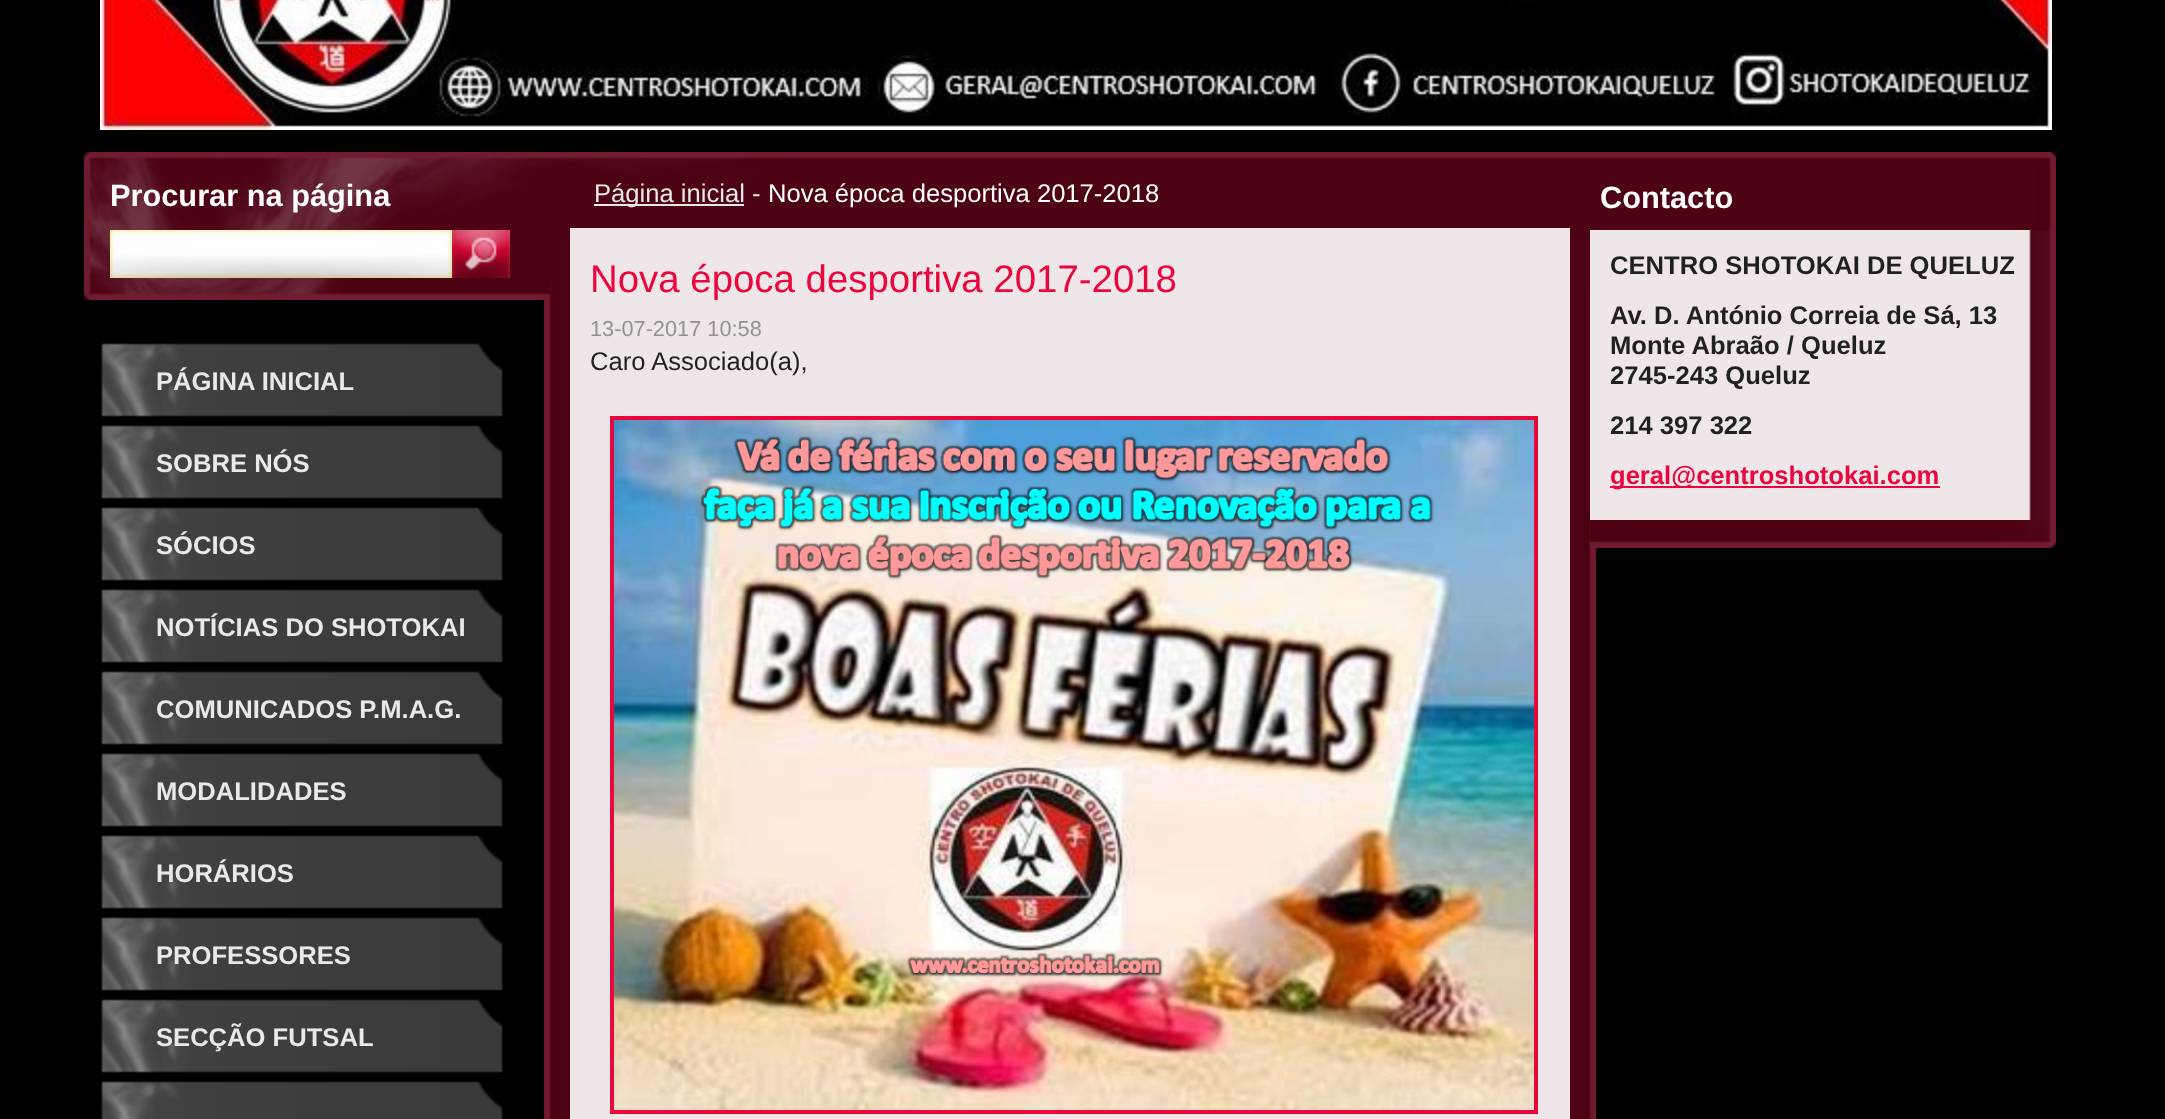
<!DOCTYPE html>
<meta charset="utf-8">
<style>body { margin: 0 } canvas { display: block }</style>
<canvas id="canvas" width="2165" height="1119"></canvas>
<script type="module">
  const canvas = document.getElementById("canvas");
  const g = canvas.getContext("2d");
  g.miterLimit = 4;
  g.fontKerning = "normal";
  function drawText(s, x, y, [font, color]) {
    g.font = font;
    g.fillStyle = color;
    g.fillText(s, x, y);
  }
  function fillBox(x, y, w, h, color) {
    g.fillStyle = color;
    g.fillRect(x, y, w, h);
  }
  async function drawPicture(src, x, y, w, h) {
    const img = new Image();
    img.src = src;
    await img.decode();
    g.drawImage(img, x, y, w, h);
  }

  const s1 = ["bold 30.75px Liberation Sans", "#FFFFFF"];
  const s2 = ["25.6px Liberation Sans", "#E9E9E9"];
  const s3 = ["25.6px Liberation Sans", "#FFFFFF"];
  const s4 = ["38.4px Liberation Sans", "#EB063C"];
  const s5 = ["21.75px Liberation Sans", "#919192"];
  const s6 = ["25.6px Liberation Sans", "#1F221C"];
  const s7 = ["bold 25.6px Liberation Sans", "#1F221C"];
  const s8 = ["bold 25.6px Liberation Sans", "#EB063C"];
  const s9 = ["bold 25.6px Liberation Sans", "#E9E9E9"];

  fillBox(0, 0, 2165, 1119, "#000000");
  await drawPicture("pic1.png", 100, 0, 1952, 130);
  await drawPicture("pic2.png", 84, 152, 1972, 148);
  drawText("Procurar na página", 110, 206, s1);
  await drawPicture("pic3.png", 110, 230, 342, 48);
  await drawPicture("pic4.png", 452, 230, 58, 48);
  await drawPicture("pic5.png", 544, 296, 1052, 823);
  await drawPicture("pic6.png", 544, 152, 1052, 144);
  fillBox(594, 204, 150, 2, "#E9E9E9");
  drawText("Página inicial -", 594, 202, s2);
  drawText("Nova época desportiva 2017-2018", 768, 202, s3);
  fillBox(570, 228, 1000, 891, "#EEE6E8");
  drawText("Nova época desportiva 2017-2018", 590, 292, s4);
  drawText("13-07-2017 10:58", 590, 336, s5);
  drawText("Caro Associado(a),", 590, 370, s6);
  g.strokeStyle = "#EB063C";
  g.lineWidth = 4;
  g.strokeRect(612, 418, 924, 694);
  await drawPicture("pic7.png", 614, 420, 920, 690);
  drawText("Contacto", 1600, 208, s1);
  await drawPicture("pic8.png", 1590, 230, 466, 290);
  drawText("CENTRO SHOTOKAI DE QUELUZ", 1610, 274, s7);
  drawText("Av. D. António Correia de Sá, 13", 1610, 324, s7);
  drawText("Monte Abraão / Queluz", 1610, 354, s7);
  drawText("2745-243 Queluz", 1610, 384, s7);
  drawText("214 397 322", 1610, 434, s7);
  fillBox(1610, 486, 218, 2, "#EB063C");
  drawText("geral@centroshotokai.com", 1610, 484, s8);
  fillBox(1828, 486, 112, 2, "#EB063C");
  await drawPicture("pic9.png", 1590, 520, 466, 28);
  await drawPicture("pic10.png", 101, 343, 402, 74);
  drawText("PÁGINA INICIAL", 156, 390, s9);
  await drawPicture("pic10.png", 101, 425, 402, 74);
  drawText("SOBRE NÓS", 156, 472, s9);
  await drawPicture("pic10.png", 101, 507, 402, 74);
  drawText("SÓCIOS", 156, 554, s9);
  await drawPicture("pic10.png", 101, 589, 402, 74);
  drawText("NOTÍCIAS DO SHOTOKAI", 156, 636, s9);
  await drawPicture("pic10.png", 101, 671, 402, 74);
  drawText("COMUNICADOS P.M.A.G.", 156, 718, s9);
  await drawPicture("pic10.png", 101, 753, 402, 74);
  drawText("MODALIDADES", 156, 800, s9);
  await drawPicture("pic10.png", 101, 835, 402, 74);
  drawText("HORÁRIOS", 156, 882, s9);
  await drawPicture("pic10.png", 101, 917, 402, 74);
  drawText("PROFESSORES", 156, 964, s9);
  await drawPicture("pic10.png", 101, 999, 402, 74);
  drawText("SECÇÃO FUTSAL", 156, 1046, s9);
  await drawPicture("pic11.png", 101, 1081, 402, 38);
</script>
